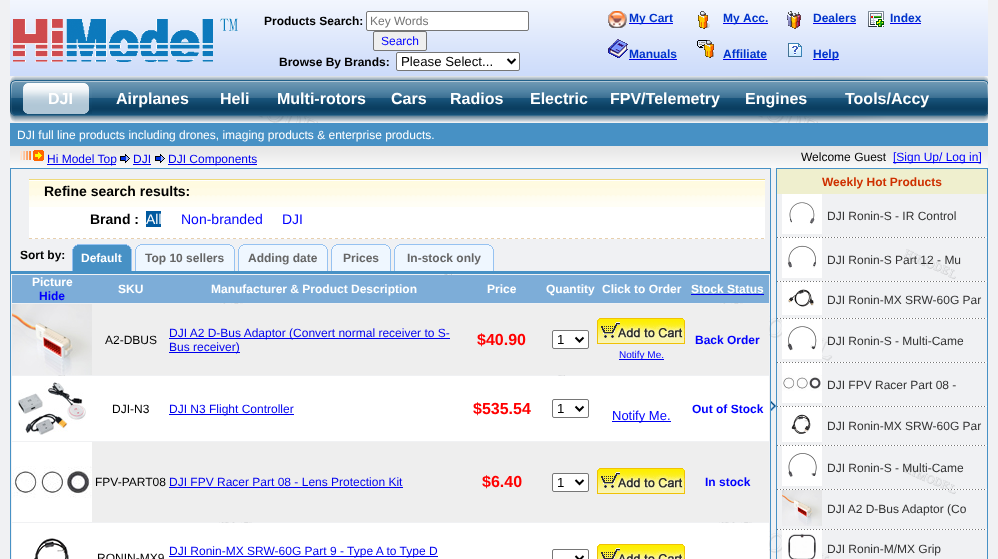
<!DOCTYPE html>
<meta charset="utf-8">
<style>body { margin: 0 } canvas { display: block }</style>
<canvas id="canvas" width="998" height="559"></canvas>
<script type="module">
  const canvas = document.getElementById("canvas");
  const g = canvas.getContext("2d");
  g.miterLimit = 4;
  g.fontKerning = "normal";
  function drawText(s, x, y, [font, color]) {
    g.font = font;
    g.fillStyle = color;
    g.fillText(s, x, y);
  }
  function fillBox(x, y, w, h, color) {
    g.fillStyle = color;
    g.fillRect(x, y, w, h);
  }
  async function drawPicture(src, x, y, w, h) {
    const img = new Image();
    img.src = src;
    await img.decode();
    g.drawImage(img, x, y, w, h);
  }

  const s1 = ["bold 12px Liberation Sans", "#000000"];
  const s2 = ["12px Liberation Sans", "#757575"];
  const s3 = ["12px Liberation Sans", "#0000FF"];
  const s4 = ["bold 12px Liberation Sans", "#0033CC"];
  const s5 = ["13.25px Liberation Sans", "#000000"];
  const s6 = ["bold 16px Liberation Sans", "#FFFFFF"];
  const s7 = ["12px Liberation Sans", "#FFFFFF"];
  const s8 = ["12px Liberation Sans", "#0000EE"];
  const s9 = ["12px Liberation Sans", "#000000"];
  const s10 = ["bold 14px Liberation Sans", "#000000"];
  const s11 = ["14px Liberation Sans", "#FFFFFF"];
  const s12 = ["14px Liberation Sans", "#0000FF"];
  const s13 = ["bold 12px Liberation Sans", "#FFFFFF"];
  const s14 = ["bold 12px Liberation Sans", "#666666"];
  const s15 = ["bold 12px Liberation Sans", "#0000FF"];
  const s16 = ["bold 16px Liberation Sans", "#FF0000"];
  const s17 = ["10px Liberation Sans", "#0000FF"];
  const s18 = ["13px Liberation Sans", "#0000FF"];
  const s19 = ["bold 12px Liberation Sans", "#CE3000"];
  const s20 = ["12px Liberation Sans", "#333333"];

  fillBox(0, 0, 998, 559, "#FFFFFF");
  await drawPicture("pic1.png", 0, 0, 998, 559);
  await drawPicture("pic2.png", 10, 0, 978, 76);
  drawText("Products Search:", 264, 25, s1);
  g.fillStyle = "#FFFFFF";
  g.beginPath();
  g.roundRect(366.5, 11.5, 162, 19, 1.5);
  g.fill();
  g.strokeStyle = "#767676";
  g.stroke();
  drawText("Key Words", 370, 25, s2);
  g.fillStyle = "#EFEFEF";
  g.beginPath();
  g.roundRect(373.5, 31.5, 53, 19, 1.5);
  g.fill();
  g.stroke();
  drawText("Search", 381, 45, s3);
  await drawPicture("pic3.png", 13, 18, 225, 44);
  await drawPicture("pic4.png", 608, 11, 19, 17);
  fillBox(629, 23, 44, 1, "#0000EE");
  drawText("My Cart", 629, 22, s4);
  await drawPicture("pic5.png", 698, 11, 12, 18);
  fillBox(723, 23, 45, 1, "#0000EE");
  drawText("My", 723, 22, s4);
  drawText("Acc.", 743, 22, s4);
  await drawPicture("pic6.png", 787, 11, 14, 18);
  drawText("Dealers", 813, 22, s4);
  fillBox(813, 23, 43, 1, "#0000EE");
  await drawPicture("pic7.png", 868, 11, 16, 16);
  drawText("Index", 890, 22, s4);
  fillBox(890, 23, 31, 1, "#0000EE");
  await drawPicture("pic8.png", 608, 39, 20, 19);
  drawText("Manuals", 629, 58, s4);
  fillBox(629, 59, 48, 1, "#0000EE");
  await drawPicture("pic9.png", 697, 40, 17, 18);
  drawText("Affiliate", 723, 58, s4);
  fillBox(723, 59, 44, 1, "#0000EE");
  await drawPicture("pic10.png", 788, 43, 14, 14);
  fillBox(813, 59, 26, 1, "#0000EE");
  drawText("Help", 813, 58, s4);
  drawText("Browse By Brands:", 279, 66, s1);
  g.fillStyle = "#FFFFFF";
  g.beginPath();
  g.roundRect(396.5, 52.5, 123, 18, 1.5);
  g.fill();
  g.stroke();
  g.beginPath();
  g.moveTo(507.5, 59);
  g.lineTo(511.5, 63);
  g.lineTo(515.5, 59);
  g.strokeStyle = "#000000";
  g.lineWidth = 2;
  g.stroke();
  drawText("Please Select...", 401, 66, s5);
  await drawPicture("pic11.png", 10, 76, 10, 46);
  await drawPicture("pic12.png", 20, 76, 968, 46);
  await drawPicture("pic13.png", 20, 83, 10, 31);
  await drawPicture("pic14.png", 30, 83, 62, 31);
  drawText("Airplanes", 116, 104, s6);
  drawText("Heli", 220, 104, s6);
  drawText("Multi-rotors", 277, 104, s6);
  drawText("Cars", 391, 104, s6);
  drawText("Radios", 450, 104, s6);
  drawText("Electric", 530, 104, s6);
  drawText("FPV/Telemetry", 610, 104, s6);
  drawText("Engines", 745, 104, s6);
  drawText("Tools/Accy", 845, 104, s6);
  drawText("DJI", 48, 104, s6);
  fillBox(10, 123, 978, 23, "#4791C5");
  drawText("DJI full line products including drones, imaging products & enterprise products.", 17, 139, s7);
  await drawPicture("pic15.png", 10, 146, 978, 22);
  await drawPicture("pic16.png", 20, 150, 24, 11);
  fillBox(47, 164, 69, 1, "#0000EE");
  drawText("Hi Model Top", 47, 163, s8);
  await drawPicture("pic17.png", 120, 154, 10, 9);
  drawText("DJI", 133, 163, s8);
  fillBox(133, 164, 18, 1, "#0000EE");
  await drawPicture("pic18.png", 155, 154, 10, 9);
  fillBox(168, 164, 89, 1, "#0000EE");
  drawText("DJI Components", 168, 163, s8);
  drawText("Welcome Guest", 801, 161, s9);
  fillBox(893, 162, 88, 1, "#0000EE");
  drawText("[Sign Up/ Log in]", 893, 161, s3);
  g.strokeStyle = "#4791C5";
  g.lineWidth = 1;
  g.strokeRect(10.5, 168.5, 760, 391);
  fillBox(29, 207, 736, 32, "#FFFFFF");
  await drawPicture("pic19.png", 29, 179, 736, 28);
  drawText("Refine search results:", 44, 196, s10);
  await drawPicture("pic20.png", 29, 238, 735, 1);
  drawText("Brand :", 90, 224, s10);
  fillBox(146, 211, 15, 16, "#005AA0");
  drawText("All", 146, 224, s11);
  drawText("Non-branded", 181, 224, s12);
  drawText("DJI", 282, 224, s12);
  drawText("Sort by:", 20, 259, s1);
  fillBox(77, 244, 50, 1, "#96C2F1");
  fillBox(75, 245, 54, 1, "#4791C5");
  fillBox(127, 245, 2, 1, "#96C2F1");
  fillBox(75, 245, 2, 1, "#96C2F1");
  fillBox(74, 246, 56, 1, "#4791C5");
  fillBox(129, 246, 1, 1, "#96C2F1");
  fillBox(74, 246, 1, 1, "#96C2F1");
  fillBox(73, 247, 58, 24, "#4791C5");
  fillBox(130, 247, 1, 2, "#96C2F1");
  fillBox(73, 247, 1, 2, "#96C2F1");
  fillBox(131, 249, 1, 22, "#96C2F1");
  fillBox(72, 249, 1, 22, "#96C2F1");
  drawText("Default", 81, 262, s13);
  fillBox(140, 244, 90, 1, "#96C2F1");
  fillBox(138, 245, 94, 1, "#EFF7FF");
  fillBox(230, 245, 2, 1, "#96C2F1");
  fillBox(138, 245, 2, 1, "#96C2F1");
  fillBox(137, 246, 96, 1, "#EFF7FF");
  fillBox(232, 246, 1, 1, "#96C2F1");
  fillBox(137, 246, 1, 1, "#96C2F1");
  fillBox(136, 247, 98, 24, "#EFF7FF");
  fillBox(233, 247, 1, 2, "#96C2F1");
  fillBox(136, 247, 1, 2, "#96C2F1");
  fillBox(234, 249, 1, 22, "#96C2F1");
  fillBox(135, 249, 1, 22, "#96C2F1");
  drawText("Top 10 sellers", 145, 262, s14);
  fillBox(243, 244, 80, 1, "#96C2F1");
  fillBox(241, 245, 84, 1, "#EFF7FF");
  fillBox(323, 245, 2, 1, "#96C2F1");
  fillBox(241, 245, 2, 1, "#96C2F1");
  fillBox(240, 246, 86, 1, "#EFF7FF");
  fillBox(325, 246, 1, 1, "#96C2F1");
  fillBox(240, 246, 1, 1, "#96C2F1");
  fillBox(239, 247, 88, 24, "#EFF7FF");
  fillBox(326, 247, 1, 2, "#96C2F1");
  fillBox(239, 247, 1, 2, "#96C2F1");
  fillBox(327, 249, 1, 22, "#96C2F1");
  fillBox(238, 249, 1, 22, "#96C2F1");
  drawText("Adding date", 248, 262, s14);
  fillBox(336, 244, 50, 1, "#96C2F1");
  fillBox(334, 245, 54, 1, "#EFF7FF");
  fillBox(386, 245, 2, 1, "#96C2F1");
  fillBox(334, 245, 2, 1, "#96C2F1");
  fillBox(333, 246, 56, 1, "#EFF7FF");
  fillBox(388, 246, 1, 1, "#96C2F1");
  fillBox(333, 246, 1, 1, "#96C2F1");
  fillBox(332, 247, 58, 24, "#EFF7FF");
  fillBox(389, 247, 1, 2, "#96C2F1");
  fillBox(332, 247, 1, 2, "#96C2F1");
  fillBox(390, 249, 1, 22, "#96C2F1");
  fillBox(331, 249, 1, 22, "#96C2F1");
  drawText("Prices", 343, 262, s14);
  fillBox(399, 244, 90, 1, "#96C2F1");
  fillBox(397, 245, 94, 1, "#EFF7FF");
  fillBox(489, 245, 2, 1, "#96C2F1");
  fillBox(397, 245, 2, 1, "#96C2F1");
  fillBox(396, 246, 96, 1, "#EFF7FF");
  fillBox(491, 246, 1, 1, "#96C2F1");
  fillBox(396, 246, 1, 1, "#96C2F1");
  fillBox(395, 247, 98, 24, "#EFF7FF");
  fillBox(492, 247, 1, 2, "#96C2F1");
  fillBox(395, 247, 1, 2, "#96C2F1");
  fillBox(493, 249, 1, 22, "#96C2F1");
  fillBox(394, 249, 1, 22, "#96C2F1");
  drawText("In-stock only", 407, 262, s14);
  fillBox(11, 271, 759, 3, "#4791C5");
  fillBox(12, 275, 757, 28, "#7DADD8");
  drawText("Picture", 32, 286, s13);
  drawText("Hide", 39, 300, s15);
  drawText("SKU", 118, 293, s13);
  drawText("Manufacturer & Product Description", 211, 293, s13);
  drawText("Price", 487, 293, s13);
  drawText("Quantity", 546, 293, s13);
  drawText("Click to Order", 602, 293, s13);
  drawText("Stock Status", 691, 293, s13);
  fillBox(691, 294, 73, 1, "#0000EE");
  fillBox(92, 304, 677, 71, "#EEEEEE");
  await drawPicture("pic21.png", 12, 304, 80, 71);
  drawText("A2-DBUS", 105, 344, s9);
  fillBox(169, 338, 281, 1, "#0000EE");
  drawText("DJI A2 D-Bus Adaptor (Convert normal receiver to S-", 169, 337, s8);
  fillBox(169, 352, 71, 1, "#0000EE");
  drawText("Bus receiver)", 169, 351, s8);
  drawText("$40.90", 477, 345, s16);
  g.fillStyle = "#FFFFFF";
  g.beginPath();
  g.roundRect(552.5, 330.5, 36, 18, 1.5);
  g.fill();
  g.strokeStyle = "#767676";
  g.stroke();
  g.beginPath();
  g.moveTo(575.5, 337.5);
  g.lineTo(579.5, 341.5);
  g.lineTo(583.5, 337.5);
  g.strokeStyle = "#000000";
  g.lineWidth = 2;
  g.stroke();
  drawText("1", 557, 344, s5);
  drawText("Back Order", 695, 344, s15);
  await drawPicture("pic22.png", 597, 318, 88, 26);
  fillBox(619, 359, 45, 1, "#0000EE");
  drawText("Notify Me.", 619, 358, s17);
  fillBox(12, 376, 757, 65, "#FFFFFF");
  await drawPicture("pic23.png", 18, 382, 68, 53);
  drawText("DJI-N3", 112, 413, s9);
  fillBox(169, 414, 125, 1, "#0000EE");
  drawText("DJI N3 Flight Controller", 169, 413, s8);
  drawText("$535.54", 473, 414, s16);
  g.beginPath();
  g.roundRect(552.5, 399.5, 36, 18, 1.5);
  g.strokeStyle = "#767676";
  g.lineWidth = 1;
  g.stroke();
  g.beginPath();
  g.moveTo(575.5, 406.5);
  g.lineTo(579.5, 410.5);
  g.lineTo(583.5, 406.5);
  g.strokeStyle = "#000000";
  g.lineWidth = 2;
  g.stroke();
  drawText("1", 557, 413, s5);
  drawText("Out of Stock", 692, 413, s15);
  fillBox(612, 421, 59, 1, "#0000EE");
  drawText("Notify Me.", 612, 420, s18);
  fillBox(92, 442, 677, 80, "#EEEEEE");
  await drawPicture("pic24.png", 12, 442, 80, 80);
  drawText("FPV-PART08", 95, 486, s9);
  drawText("DJI FPV Racer Part 08 - Lens Protection Kit", 169, 486, s8);
  fillBox(169, 487, 234, 1, "#0000EE");
  drawText("$6.40", 482, 487, s16);
  g.fillStyle = "#FFFFFF";
  g.beginPath();
  g.roundRect(552.5, 473.5, 36, 18, 1.5);
  g.fill();
  g.strokeStyle = "#767676";
  g.lineWidth = 1;
  g.stroke();
  g.beginPath();
  g.moveTo(575.5, 480);
  g.lineTo(579.5, 484);
  g.lineTo(583.5, 480);
  g.strokeStyle = "#000000";
  g.lineWidth = 2;
  g.stroke();
  drawText("1", 557, 487, s5);
  await drawPicture("pic22.png", 597, 468, 88, 26);
  drawText("In stock", 705, 486, s15);
  fillBox(12, 523, 757, 36, "#FFFFFF");
  await drawPicture("pic25.png", 34, 538, 35, 21);
  drawText("RONIN-MX9", 97, 562, s9);
  fillBox(169, 556, 269, 1, "#0000EE");
  drawText("DJI Ronin-MX SRW-60G Part 9 - Type A to Type D", 169, 555, s8);
  g.beginPath();
  g.roundRect(552.5, 549.5, 36, 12, 1.5);
  g.strokeStyle = "#767676";
  g.lineWidth = 1;
  g.stroke();
  g.beginPath();
  g.moveTo(575.5, 556);
  g.lineTo(579.5, 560);
  g.lineTo(583.5, 556);
  g.strokeStyle = "#000000";
  g.lineWidth = 2;
  g.stroke();
  await drawPicture("pic26.png", 597, 544, 88, 15);
  await drawPicture("pic27.png", 771, 401, 5, 10);
  g.strokeStyle = "#4791C5";
  g.lineWidth = 1;
  g.strokeRect(776.5, 168.5, 211, 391);
  fillBox(777, 169, 210, 25, "#EFEFCE");
  drawText("Weekly Hot Products", 822, 186, s19);
  await drawPicture("pic28.png", 782, 194, 40, 40);
  drawText("DJI Ronin-S - IR Control", 827, 220, s20);
  await drawPicture("pic29.png", 777, 237, 210, 1);
  await drawPicture("pic30.png", 782, 238, 40, 40);
  drawText("DJI Ronin-S Part 12 - Mu", 827, 264, s20);
  await drawPicture("pic29.png", 777, 281, 210, 1);
  await drawPicture("pic31.png", 782, 282, 40, 33);
  drawText("DJI Ronin-MX SRW-60G Par", 827, 304, s20);
  await drawPicture("pic29.png", 777, 318, 210, 1);
  await drawPicture("pic32.png", 782, 319, 40, 40);
  drawText("DJI Ronin-S - Multi-Came", 827, 345, s20);
  await drawPicture("pic29.png", 777, 362, 210, 1);
  await drawPicture("pic33.png", 782, 363, 40, 40);
  drawText("DJI FPV Racer Part 08 -", 827, 389, s20);
  await drawPicture("pic29.png", 777, 406, 210, 1);
  await drawPicture("pic34.png", 782, 407, 40, 35);
  drawText("DJI Ronin-MX SRW-60G Par", 827, 430, s20);
  await drawPicture("pic29.png", 777, 445, 210, 1);
  await drawPicture("pic35.png", 782, 446, 40, 40);
  drawText("DJI Ronin-S - Multi-Came", 827, 472, s20);
  await drawPicture("pic29.png", 777, 489, 210, 1);
  await drawPicture("pic36.png", 782, 490, 40, 36);
  drawText("DJI A2 D-Bus Adaptor (Co", 827, 513, s20);
  await drawPicture("pic29.png", 777, 529, 210, 1);
  await drawPicture("pic37.png", 782, 530, 40, 29);
  drawText("DJI Ronin-M/MX Grip", 827, 553, s20);
</script>
